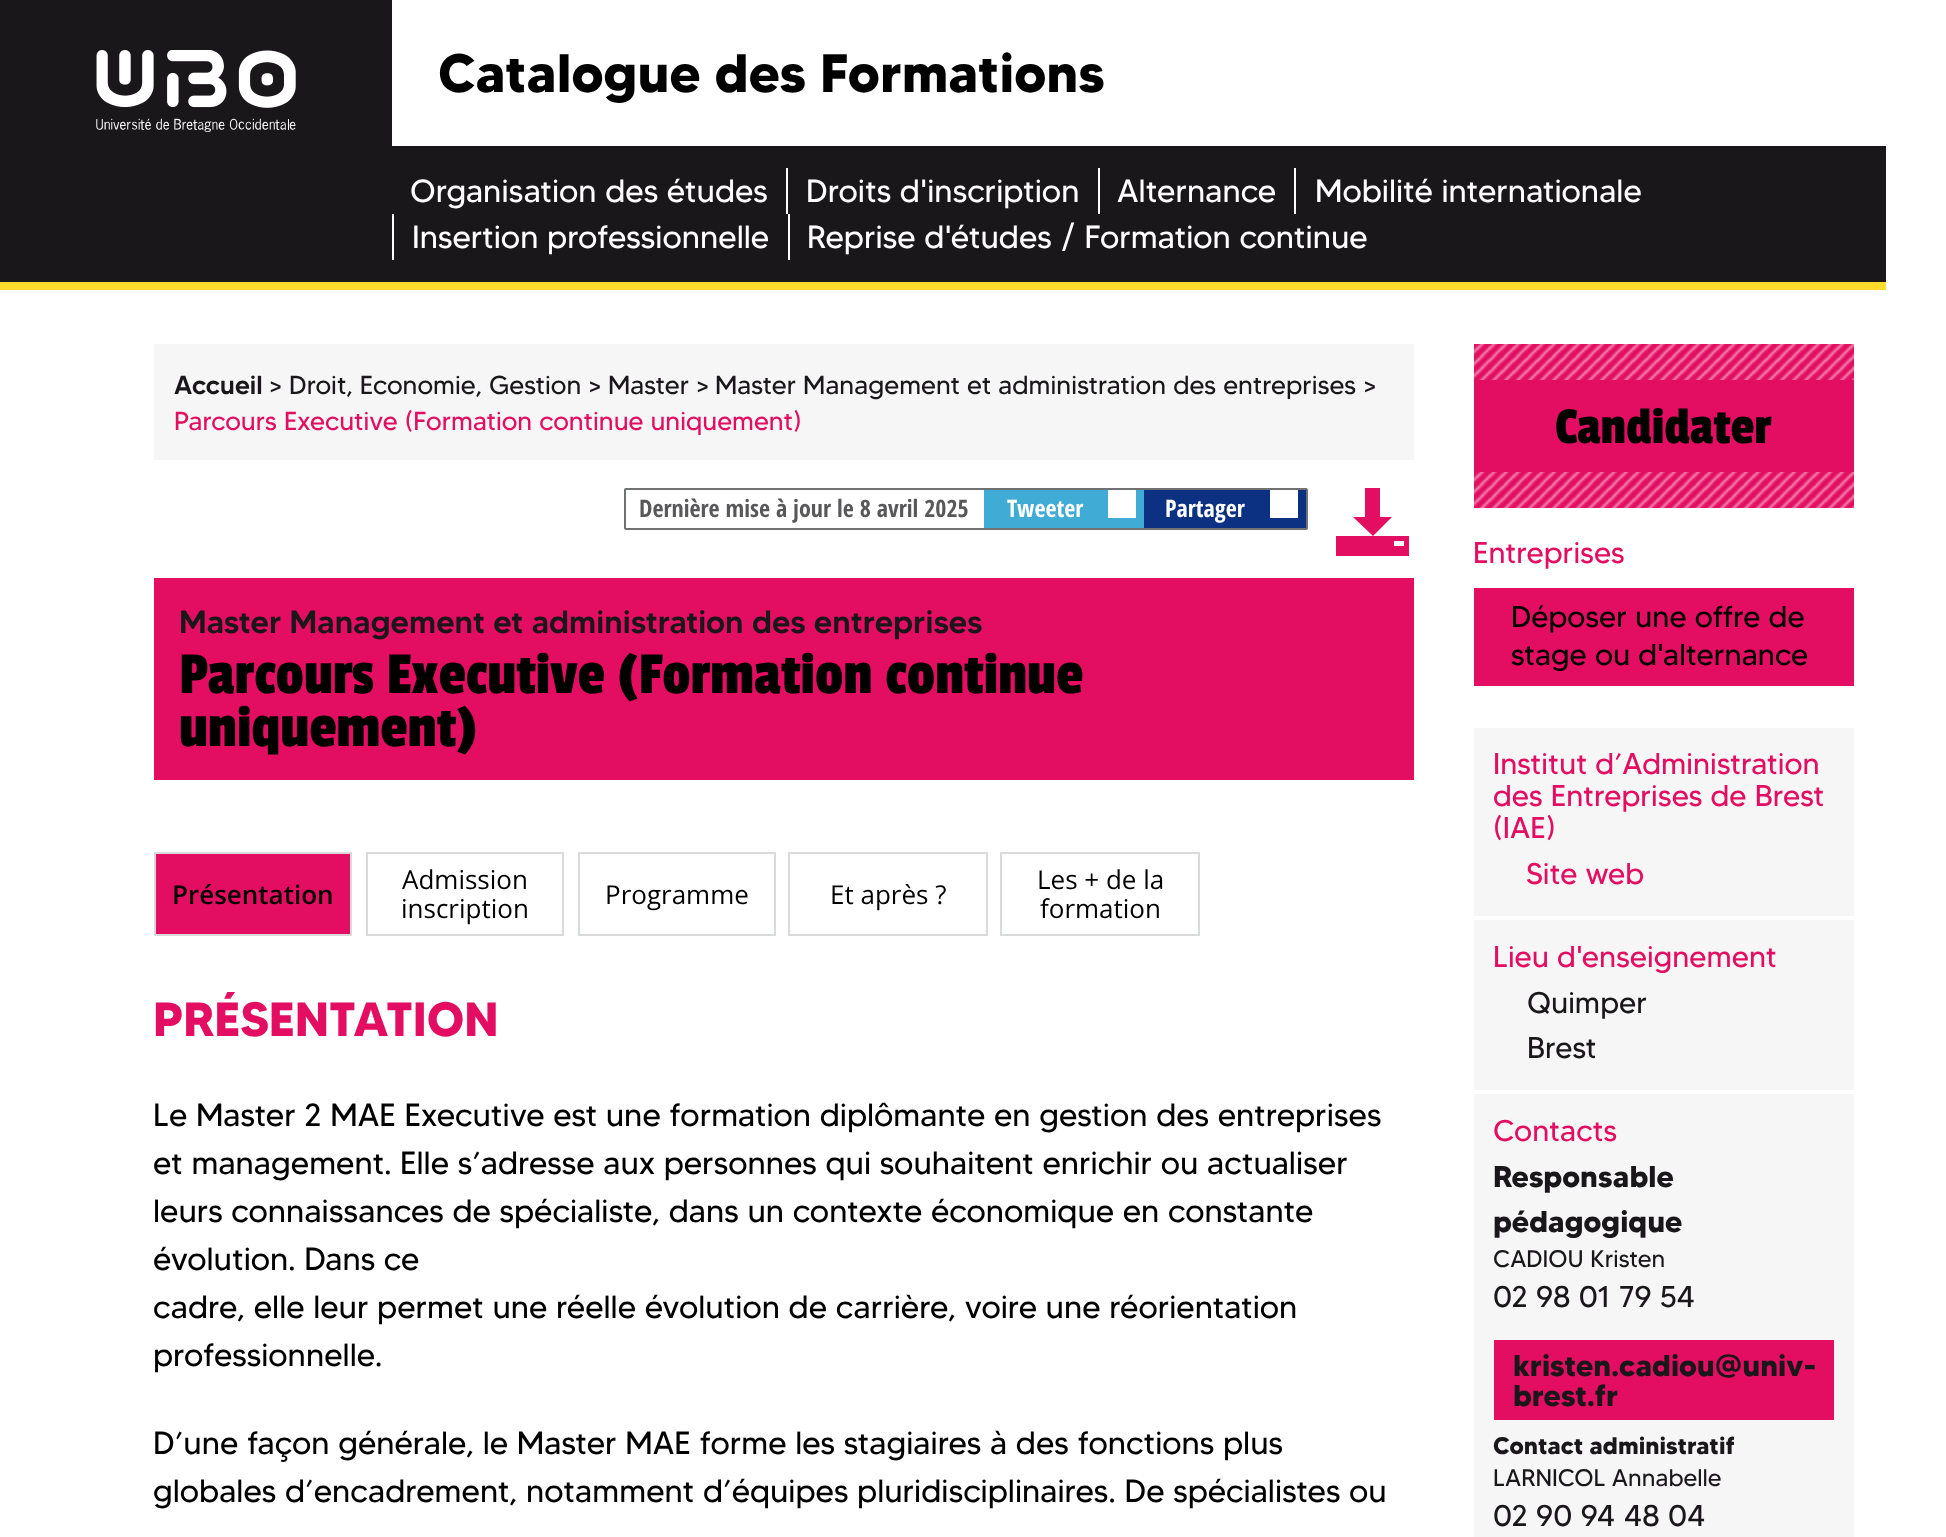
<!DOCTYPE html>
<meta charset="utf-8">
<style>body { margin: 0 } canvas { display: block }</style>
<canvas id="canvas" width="1946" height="1537"></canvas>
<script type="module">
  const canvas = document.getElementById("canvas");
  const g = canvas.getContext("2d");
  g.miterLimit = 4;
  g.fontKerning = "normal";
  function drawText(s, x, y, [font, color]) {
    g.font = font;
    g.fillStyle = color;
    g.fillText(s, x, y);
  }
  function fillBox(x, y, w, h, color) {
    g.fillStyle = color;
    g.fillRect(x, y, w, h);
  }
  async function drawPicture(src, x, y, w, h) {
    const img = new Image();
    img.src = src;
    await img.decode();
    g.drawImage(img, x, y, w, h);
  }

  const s1 = ["bold 54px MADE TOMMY", "#000000"];
  const s2 = ["32px MADE TOMMY", "#FFFFFF"];
  const s3 = ["500 26px MADE TOMMY", "#1A171B"];
  const s4 = ["26px MADE TOMMY", "#1A171B"];
  const s5 = ["26px MADE TOMMY", "#E30D61"];
  const s6 = ["bold 24px Open Sans Condensed", "#58585A"];
  const s7 = ["bold 24px Open Sans Condensed", "#FFFFFF"];
  const s8 = ["500 32px MADE TOMMY", "#1A171B"];
  const s9 = ["62px Passion One", "#000000"];
  const s10 = ["600 26px Open Sans", "#000000"];
  const s11 = ["26px Open Sans", "#000000"];
  const s12 = ["bold 48px MADE TOMMY", "#E30D61"];
  const s13 = ["32px MADE TOMMY", "#000000"];
  const s14 = ["54px Passion One", "#000000"];
  const s15 = ["30px MADE TOMMY", "#E30D61"];
  const s16 = ["30px MADE TOMMY", "#000000"];
  const s17 = ["30px MADE TOMMY", "#1A171B"];
  const s18 = ["bold 30px MADE TOMMY", "#1A171B"];
  const s19 = ["24px MADE TOMMY", "#1A171B"];
  const s20 = ["bold 24px MADE TOMMY", "#1A171B"];

  fillBox(0, 0, 1946, 1537, "#FFFFFF");
  fillBox(0, 0, 392, 146, "#1A171B");
  await drawPicture("pic1.png", 96, 50, 200, 82);
  drawText("Catalogue des Formations", 438, 92, s1);
  fillBox(0, 146, 1886, 136, "#1A171B");
  fillBox(0, 282, 1886, 8, "#FFDC2B");
  drawText("Organisation des études", 410, 202, s2);
  fillBox(786, 168, 2, 46, "#FFFFFF");
  drawText("Droits d'inscription", 806, 202, s2);
  fillBox(1098, 168, 2, 46, "#FFFFFF");
  drawText("Alternance", 1117, 202, s2);
  fillBox(1294, 168, 2, 46, "#FFFFFF");
  drawText("Mobilité internationale", 1315, 202, s2);
  fillBox(392, 214, 2, 46, "#FFFFFF");
  drawText("Insertion professionnelle", 412, 248, s2);
  fillBox(788, 214, 2, 46, "#FFFFFF");
  drawText("Reprise d'études / Formation continue", 807, 248, s2);
  fillBox(154, 344, 1260, 116, "#F6F6F6");
  drawText("Accueil", 174, 394, s3);
  drawText(">", 269, 394, s4);
  drawText("Droit, Economie, Gestion >", 289, 394, s4);
  drawText("Master >", 608, 394, s4);
  drawText("Master Management et administration des entreprises >", 715, 394, s4);
  drawText("Parcours Executive (Formation continue uniquement)", 174, 430, s5);
  g.beginPath();
  g.roundRect(625, 489, 682, 40, 1);
  g.strokeStyle = "#707173";
  g.lineWidth = 2;
  g.stroke();
  drawText("Dernière mise à jour le 8 avril 2025", 639, 517, s6);
  fillBox(984, 490, 160, 38, "#40ABD4");
  drawText("Tweeter", 1007, 517, s7);
  fillBox(1108, 490, 28, 28, "#FFFFFF");
  fillBox(1144, 490, 162, 38, "#0C3183");
  drawText("Partager", 1165, 517, s7);
  fillBox(1270, 490, 28, 28, "#FFFFFF");
  g.fillStyle = "#E30D61";
  g.beginPath();
  g.moveTo(1392, 517);
  g.lineTo(1373, 536);
  g.lineTo(1353, 517);
  g.lineTo(1365, 517);
  g.lineTo(1365, 488);
  g.lineTo(1380, 488);
  g.lineTo(1380, 517);
  g.closePath();
  g.moveTo(1373, 536);
  g.lineTo(1336, 536);
  g.lineTo(1336, 556);
  g.lineTo(1409, 556);
  g.lineTo(1409, 536);
  g.closePath();
  g.moveTo(1404, 546);
  g.lineTo(1394, 546);
  g.lineTo(1394, 541);
  g.lineTo(1404, 541);
  g.closePath();
  g.fill();
  fillBox(154, 578, 1260, 202, "#E30D61");
  drawText("Master Management et administration des entreprises", 179, 633, s8);
  drawText("Parcours Executive (Formation continue", 179, 693, s9);
  drawText("uniquement)", 179, 746, s9);
  g.fillStyle = "#E30D61";
  g.beginPath();
  g.rect(155, 853, 196, 82);
  g.fill();
  g.strokeStyle = "#D9DADB";
  g.stroke();
  drawText("Présentation", 172, 904, s10);
  g.strokeRect(367, 853, 196, 82);
  drawText("Admission", 402, 889, s11);
  drawText("inscription", 401, 918, s11);
  g.strokeRect(579, 853, 196, 82);
  drawText("Programme", 605, 904, s11);
  g.strokeRect(789, 853, 198, 82);
  drawText("Et après ?", 830, 904, s11);
  g.strokeRect(1001, 853, 198, 82);
  drawText("Les + de la", 1037, 889, s11);
  drawText("formation", 1040, 918, s11);
  drawText("PRÉSENTATION", 153, 1036, s12);
  drawText("Le Master 2 MAE Executive est une formation diplômante en gestion des entreprises", 153, 1126, s13);
  drawText("et management. Elle s’adresse aux personnes qui souhaitent enrichir ou actualiser", 153, 1174, s13);
  drawText("leurs connaissances de spécialiste, dans un contexte économique en constante", 153, 1222, s13);
  drawText("évolution. Dans ce", 153, 1270, s13);
  drawText("cadre, elle leur permet une réelle évolution de carrière, voire une réorientation", 153, 1318, s13);
  drawText("professionnelle.", 153, 1366, s13);
  drawText("D’une façon générale, le Master MAE forme les stagiaires à des fonctions plus", 153, 1454, s13);
  drawText("globales d’encadrement, notamment d’équipes pluridisciplinaires. De spécialistes ou", 153, 1502, s13);
  fillBox(1474, 344, 380, 164, "#E30D61");
  await drawPicture("pic2.png", 1474, 344, 380, 36);
  drawText("Candidater", 1555, 443, s14);
  await drawPicture("pic2.png", 1474, 472, 380, 36);
  drawText("Entreprises", 1473, 563, s15);
  fillBox(1474, 588, 380, 98, "#E30D61");
  drawText("Déposer une offre de", 1511, 627, s16);
  drawText("stage ou d'alternance", 1511, 665, s16);
  fillBox(1474, 728, 380, 188, "#F6F6F6");
  drawText("Institut d’Administration", 1493, 774, s15);
  drawText("des Entreprises de Brest", 1493, 806, s15);
  drawText("(IAE)", 1493, 838, s15);
  drawText("Site web", 1526, 884, s15);
  fillBox(1474, 920, 380, 170, "#F6F6F6");
  drawText("Lieu d'enseignement", 1493, 967, s15);
  drawText("Quimper", 1527, 1013, s17);
  drawText("Brest", 1527, 1058, s17);
  fillBox(1474, 1094, 380, 443, "#F6F6F6");
  drawText("Contacts", 1493, 1141, s15);
  drawText("Responsable", 1493, 1187, s18);
  drawText("pédagogique", 1493, 1232, s18);
  drawText("CADIOU Kristen", 1493, 1267, s19);
  drawText("02 98 01 79 54", 1493, 1307, s17);
  fillBox(1494, 1340, 340, 80, "#E30D61");
  drawText("kristen.cadiou@univ-", 1513, 1376, s18);
  drawText("brest.fr", 1513, 1406, s18);
  drawText("Contact administratif", 1493, 1454, s20);
  drawText("LARNICOL Annabelle", 1493, 1486, s19);
  drawText("02 90 94 48 04", 1493, 1526, s17);
</script>
